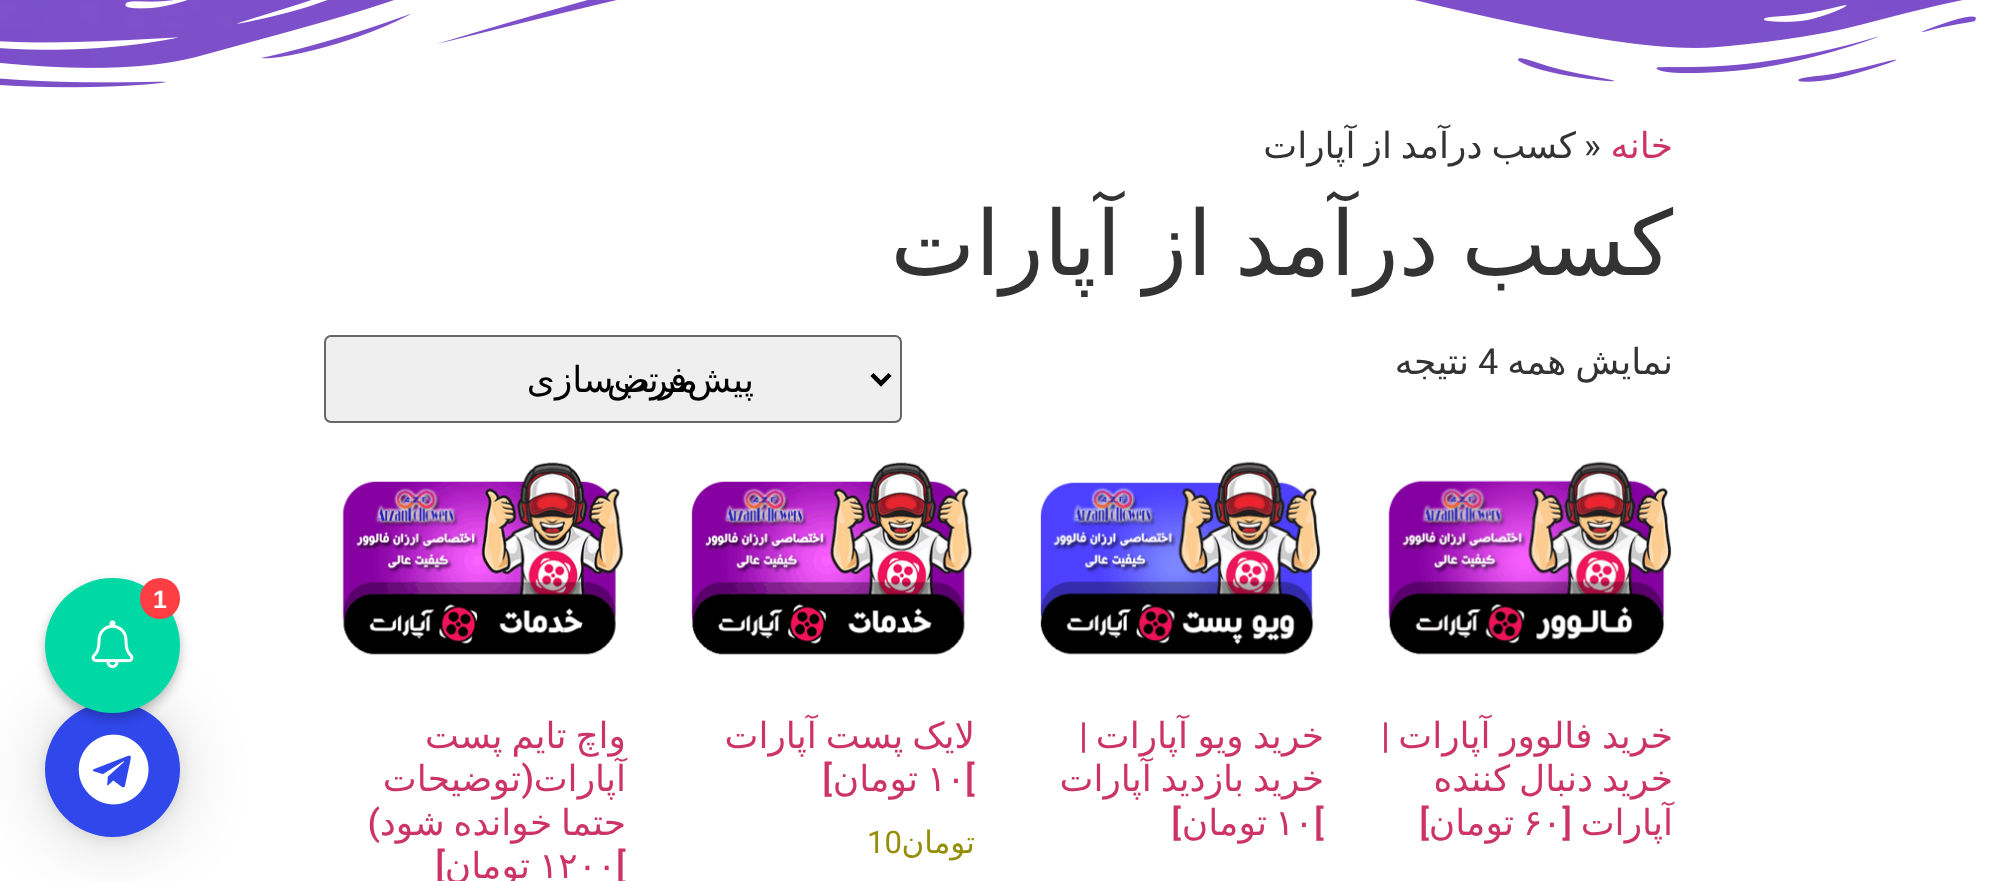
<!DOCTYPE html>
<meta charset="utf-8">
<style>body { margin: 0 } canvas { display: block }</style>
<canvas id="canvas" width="1995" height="881"></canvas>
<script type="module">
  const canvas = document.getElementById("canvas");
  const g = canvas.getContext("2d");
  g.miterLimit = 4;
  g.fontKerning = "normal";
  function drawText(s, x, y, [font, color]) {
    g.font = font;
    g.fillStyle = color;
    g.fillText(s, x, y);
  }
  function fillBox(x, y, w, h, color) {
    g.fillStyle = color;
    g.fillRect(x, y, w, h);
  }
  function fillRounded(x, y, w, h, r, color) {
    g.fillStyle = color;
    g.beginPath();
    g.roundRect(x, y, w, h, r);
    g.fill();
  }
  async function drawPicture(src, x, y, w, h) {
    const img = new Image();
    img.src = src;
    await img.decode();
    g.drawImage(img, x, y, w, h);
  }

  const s1 = ["36px DejaVu Sans", "#CC3366"];
  const s2 = ["36px Roboto", "#333333"];
  const s3 = ["36px DejaVu Sans", "#333333"];
  const s4 = ["90px DejaVu Sans", "#333333"];
  const s5 = ["36px DejaVu Sans", "#000000"];
  const s6 = ["500 36px Roboto", "#CC3366"];
  const s7 = ["31px DejaVu Sans", "#958E09"];
  const s8 = ["31px Roboto", "#958E09"];
  const s9 = ["bold 25px Liberation Sans", "#FFFFFF"];

  fillBox(0, 0, 1995, 881, "#FFFFFF");
  await drawPicture("pic1.png", 0, 0, 1976, 88);
  await drawPicture("pic2.png", 0, 0, 1995, 119);
  g.direction = "rtl";
  drawText("خانه", 1673, 158, s1);
  g.direction = "ltr";
  drawText("»", 1584, 158, s2);
  g.wordSpacing = "-2.5px";
  g.direction = "rtl";
  drawText("کسب درآمد از آپارات", 1576, 158, s3);
  g.wordSpacing = "-6px";
  drawText("کسب درآمد از آپارات", 1673, 275, s4);
  g.wordSpacing = "-2.5px";
  drawText("نمایش همه", 1673, 374, s3);
  g.wordSpacing = "0px";
  g.direction = "ltr";
  drawText("4", 1478, 374, s2);
  g.direction = "rtl";
  drawText("نتیجه", 1469, 374, s3);
  g.fillStyle = "#EFEFEF";
  g.beginPath();
  g.roundRect(325, 336, 576, 86, 6);
  g.fill();
  g.strokeStyle = "#666666";
  g.lineWidth = 2;
  g.stroke();
  g.beginPath();
  g.moveTo(872, 374.5);
  g.lineTo(881, 383.5);
  g.lineTo(890, 374.5);
  g.strokeStyle = "#000000";
  g.lineWidth = 4.5;
  g.stroke();
  drawText("مرتب‌سازی", 698, 392, s5);
  drawText("پیش‌فرض", 754, 392, s5);
  await drawPicture("pic3.png", 1388, 461, 284, 194);
  g.wordSpacing = "-2px";
  drawText("خرید فالوور آپارات", 1673, 748, s1);
  g.wordSpacing = "0px";
  drawText("|", 1390, 748, s6);
  g.wordSpacing = "-2.5px";
  drawText("خرید دنبال کننده", 1673, 791, s1);
  g.wordSpacing = "0px";
  drawText("آپارات", 1673, 835, s1);
  drawText("[", 1572, 835, s6);
  g.direction = "ltr";
  drawText("۶۰", 1523, 835, s1);
  g.direction = "rtl";
  drawText("تومان", 1514, 835, s1);
  drawText("]", 1429, 835, s6);
  await drawPicture("pic4.png", 1040, 461, 281, 194);
  g.wordSpacing = "-2px";
  drawText("خرید ویو آپارات", 1324, 748, s1);
  g.wordSpacing = "0px";
  drawText("|", 1088, 748, s6);
  g.wordSpacing = "-2.5px";
  drawText("خرید بازدید آپارات", 1324, 791, s1);
  g.wordSpacing = "0px";
  g.direction = "ltr";
  drawText("[", 1314, 835, s6);
  drawText("۱۰", 1275, 835, s1);
  g.direction = "rtl";
  drawText("تومان", 1267, 835, s1);
  drawText("]", 1181, 835, s6);
  await drawPicture("pic5.png", 691, 462, 282, 193);
  g.wordSpacing = "-2.5px";
  drawText("لایک پست آپارات", 975, 748, s1);
  g.wordSpacing = "0px";
  g.direction = "ltr";
  drawText("[", 965, 791, s6);
  drawText("۱۰", 927, 791, s1);
  g.direction = "rtl";
  drawText("تومان", 918, 791, s1);
  drawText("]", 832, 791, s6);
  drawText("تومان", 975, 853, s7);
  g.direction = "ltr";
  drawText("10", 867, 853, s8);
  await drawPicture("pic6.png", 342, 462, 282, 193);
  g.wordSpacing = "-2.5px";
  g.direction = "rtl";
  drawText("واچ تایم پست", 626, 748, s1);
  g.wordSpacing = "0px";
  drawText("آپارات", 626, 791, s1);
  drawText("(", 534, 791, s6);
  drawText("توضیحات", 521, 791, s1);
  g.wordSpacing = "-2.5px";
  drawText("حتما خوانده شود", 626, 835, s1);
  g.wordSpacing = "0px";
  drawText(")", 380, 835, s6);
  g.direction = "ltr";
  drawText("[", 616, 878, s6);
  drawText("۱۲۰۰", 539, 878, s1);
  g.direction = "rtl";
  drawText("تومان", 530, 878, s1);
  drawText("]", 445, 878, s6);
  g.fillStyle = "rgba(0, 0, 0, 0.16)";
  g.filter = "blur(36px)";
  g.beginPath();
  g.roundRect(45, 707, 135, 135, 67.5);
  g.fill();
  g.filter = "none";
  g.fillStyle = "rgba(0, 0, 0, 0.1)";
  g.filter = "blur(7px)";
  g.beginPath();
  g.roundRect(45, 704, 135, 135, 67.5);
  g.fill();
  g.filter = "none";
  g.fillStyle = "#3047EC";
  g.beginPath();
  g.arc(112.5, 769.5, 67.5, 0, Math.PI * 2);
  g.fill();
  await drawPicture("pic8.png", 78, 734, 71, 71);
  g.fillStyle = "rgba(0, 0, 0, 0.26)";
  g.filter = "blur(5.5px)";
  g.beginPath();
  g.roundRect(45, 583, 135, 135, 67.5);
  g.fill();
  g.filter = "none";
  g.fillStyle = "#00D8A6";
  g.beginPath();
  g.arc(112.5, 645.5, 67.5, 0, Math.PI * 2);
  g.fill();
  await drawPicture("pic7.png", 91, 620, 43, 49);
  fillRounded(140, 578, 40, 41, 20, "#FF3E43");
  g.direction = "ltr";
  drawText("1", 153, 608, s9);
</script>
